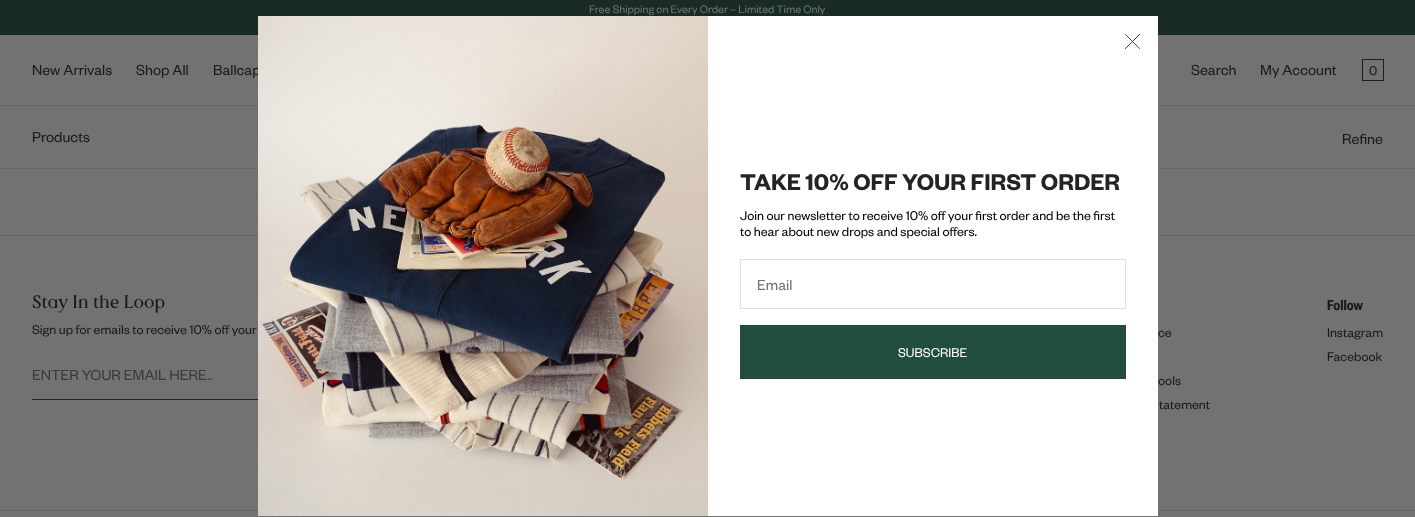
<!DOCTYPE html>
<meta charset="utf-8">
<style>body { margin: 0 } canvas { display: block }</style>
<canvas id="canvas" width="1415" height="517"></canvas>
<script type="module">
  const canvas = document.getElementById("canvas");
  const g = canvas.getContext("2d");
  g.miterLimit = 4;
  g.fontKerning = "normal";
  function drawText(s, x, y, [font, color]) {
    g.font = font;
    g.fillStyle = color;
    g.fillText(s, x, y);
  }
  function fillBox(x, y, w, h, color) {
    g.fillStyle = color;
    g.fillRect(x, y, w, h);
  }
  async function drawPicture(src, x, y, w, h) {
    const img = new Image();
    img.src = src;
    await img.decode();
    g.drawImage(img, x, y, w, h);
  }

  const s1 = ["12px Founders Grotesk", "#727272"];
  const s2 = ["16px Founders Grotesk", "#1A1A1A"];
  const s3 = ["14px Founders Grotesk", "#1A1A1A"];
  const s4 = ["600 25px Founders Grotesk", "#242424"];
  const s5 = ["14px Founders Grotesk", "#000000"];
  const s6 = ["16px Founders Grotesk", "#727272"];
  const s7 = ["14px Founders Grotesk", "#FFFFFF"];
  const s8 = ["300 18px 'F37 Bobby'", "#1A1A1A"];
  const s9 = ["16px Founders Grotesk", "#3B3B3B"];
  const s10 = ["600 16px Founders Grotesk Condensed", "#1A1A1A"];

  fillBox(0, 0, 1415, 517, "#727272");
  fillBox(0, 0, 1415, 35, "#192B25");
  drawText("Free Shipping on Every Order – Limited Time Only", 589, 13, s1);
  fillBox(0, 105, 1415, 1, "#666666");
  drawText("New Arrivals", 32, 75, s2);
  drawText("Shop All", 136, 75, s2);
  drawText("Ballcap", 213, 75, s2);
  drawText("Search", 1191, 75, s2);
  drawText("My Account", 1260, 75, s2);
  g.strokeStyle = "#1C1C1C";
  g.strokeRect(1362.5, 59.5, 21, 21);
  drawText("0", 1369, 75, s3);
  fillBox(0, 168, 1415, 1, "#666666");
  drawText("Products", 32, 142, s2);
  drawText("Refine", 1342, 144, s2);
  fillBox(0, 235, 1415, 1, "#666666");
  fillBox(0, 510, 1415, 1, "#666666");
  fillBox(708, 16, 450, 500, "#FFFFFF");
  g.beginPath();
  g.moveTo(1125.5, 34.5);
  g.lineTo(1139.5, 48.5);
  g.moveTo(1125.5, 48.5);
  g.lineTo(1139.5, 34.5);
  g.closePath();
  g.strokeStyle = "#373F47";
  g.lineWidth = 0.9;
  g.lineCap = "round";
  g.lineJoin = "round";
  g.stroke();
  await drawPicture("pic1.png", 258, 16, 450, 500);
  drawText("TAKE 10% OFF YOUR FIRST ORDER", 740, 190, s4);
  drawText("Join our newsletter to receive 10% off your first order and be the first", 740, 220, s5);
  drawText("to hear about new drops and special offers.", 740, 236, s5);
  g.strokeStyle = "#E0E0E0";
  g.lineWidth = 1;
  g.lineJoin = "miter";
  g.strokeRect(740.5, 259.5, 385, 49);
  drawText("Email", 757, 290, s6);
  fillBox(740, 325, 386, 54, "#204D3F");
  drawText("SUBSCRIBE", 898, 357, s7);
  drawText("Stay In the Loop", 32, 308, s8);
  drawText("Sign up for emails to receive 10% off your", 32, 334, s3);
  fillBox(32, 399, 226, 1, "#192B25");
  drawText("ENTER YOUR EMAIL HERE..", 32, 380, s9);
  drawText("ce", 1158, 337, s3);
  drawText("ools", 1158, 385, s3);
  drawText("tatement", 1159, 409, s3);
  drawText("Follow", 1327, 310, s10);
  drawText("Instagram", 1327, 337, s3);
  drawText("Facebook", 1327, 361, s3);
</script>
